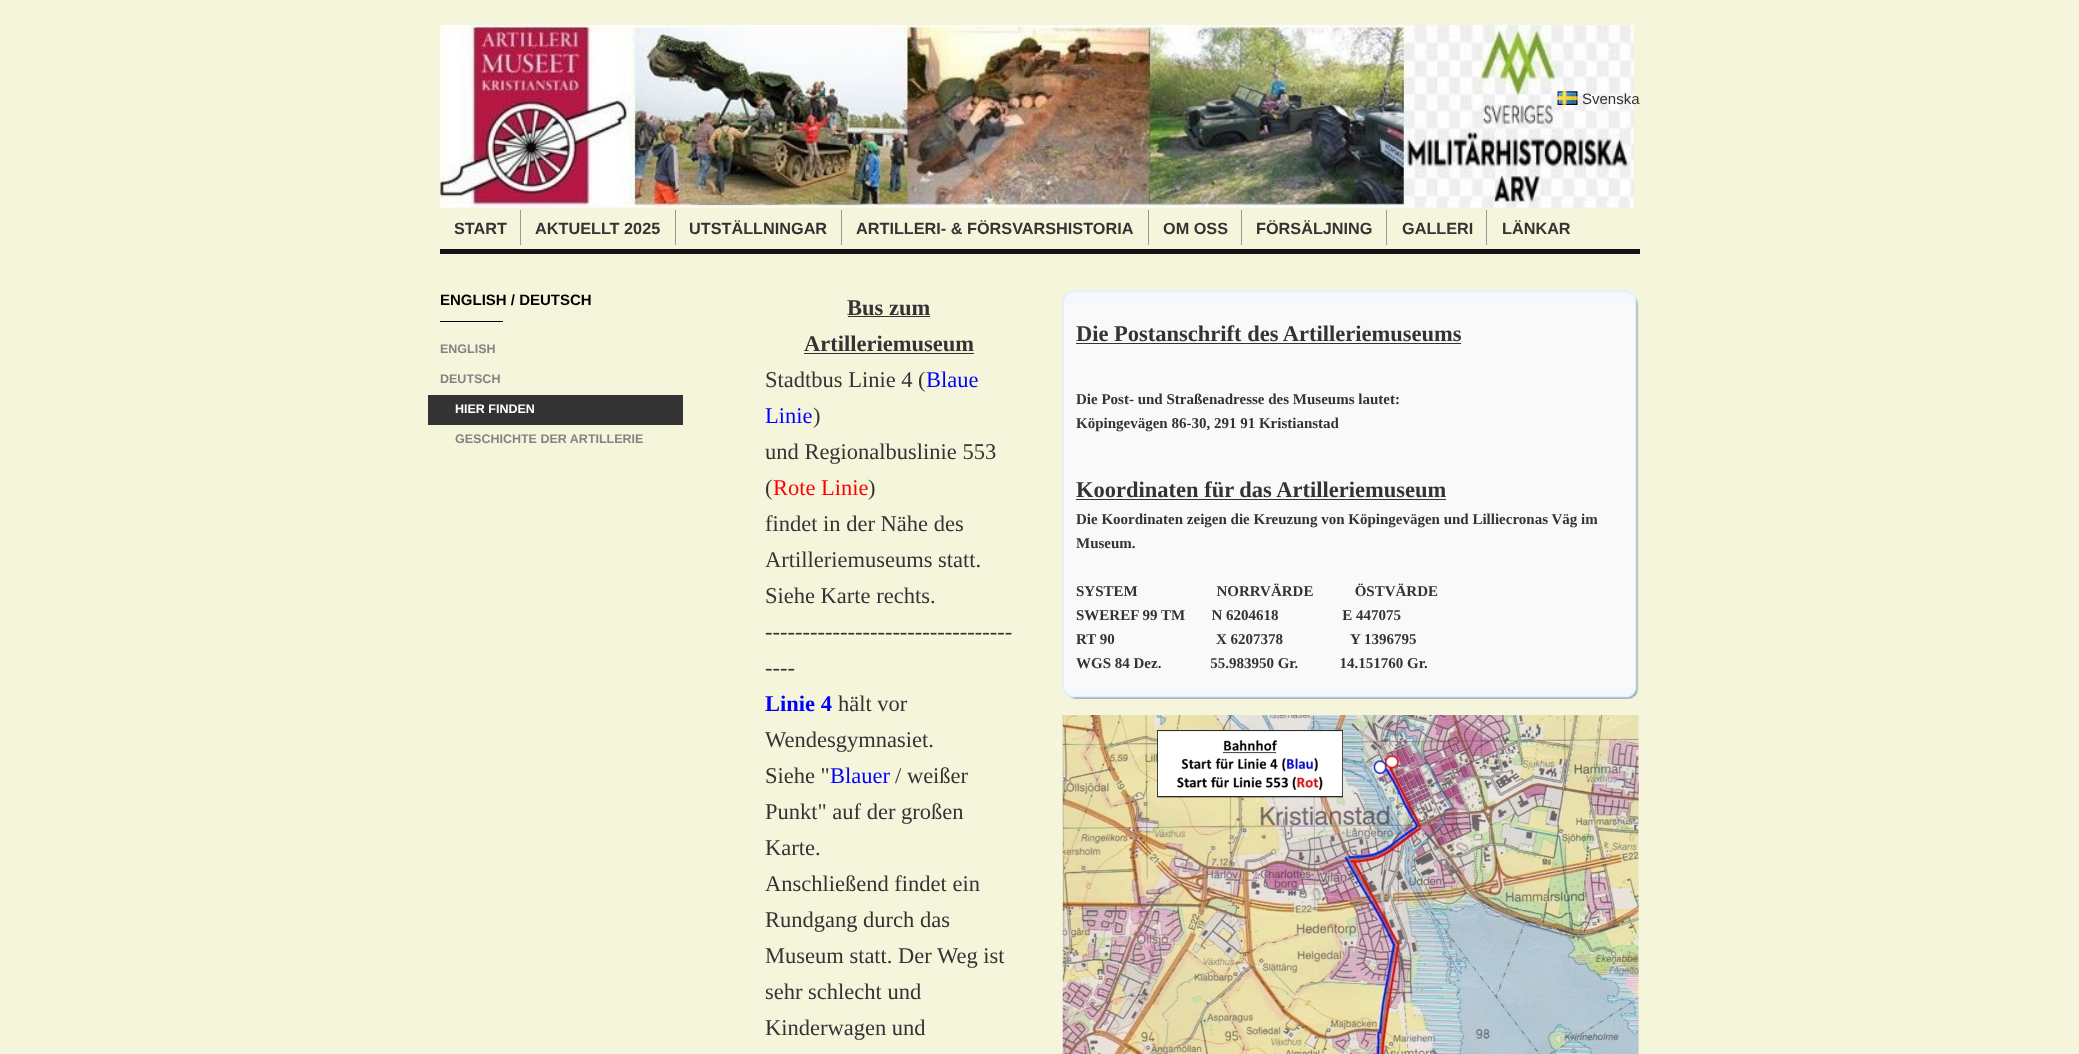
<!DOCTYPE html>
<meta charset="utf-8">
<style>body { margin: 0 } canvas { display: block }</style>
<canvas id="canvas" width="2079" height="1054"></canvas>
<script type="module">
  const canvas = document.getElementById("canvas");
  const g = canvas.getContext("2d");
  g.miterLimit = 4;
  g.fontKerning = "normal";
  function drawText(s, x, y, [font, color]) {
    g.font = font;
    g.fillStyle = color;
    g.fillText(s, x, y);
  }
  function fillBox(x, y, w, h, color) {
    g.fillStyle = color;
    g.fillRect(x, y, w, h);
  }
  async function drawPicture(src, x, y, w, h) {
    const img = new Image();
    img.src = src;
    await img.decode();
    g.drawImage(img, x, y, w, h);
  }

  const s1 = ["15px Liberation Sans", "#333333"];
  const s2 = ["bold 16.25px Liberation Sans", "#333333"];
  const s3 = ["bold 15px Liberation Sans", "#000000"];
  const s4 = ["bold 12.5px Liberation Sans", "#838383"];
  const s5 = ["bold 12.5px Liberation Sans", "#FFFFFF"];
  const s6 = ["bold 22.5px Liberation Serif", "#333333"];
  const s7 = ["22.5px Liberation Serif", "#333333"];
  const s8 = ["22.5px Liberation Serif", "#0000FF"];
  const s9 = ["22.5px Liberation Serif", "#FF0000"];
  const s10 = ["bold 22.5px Liberation Serif", "#0000FF"];
  const s11 = ["bold 15px Liberation Serif", "#333333"];

  fillBox(0, 0, 2079, 1054, "#F5F5DC");
  await drawPicture("pic1.png", 440, 25, 1194, 183);
  await drawPicture("pic2.png", 1557, 91, 21, 14);
  drawText("Svenska", 1582, 104, s1);
  drawText("START", 454, 234, s2);
  fillBox(520, 210, 1, 35, "#999999");
  drawText("AKTUELLT 2025", 535, 234, s2);
  fillBox(675, 210, 1, 35, "#999999");
  drawText("UTSTÄLLNINGAR", 689, 234, s2);
  fillBox(841, 210, 1, 35, "#999999");
  drawText("ARTILLERI- & FÖRSVARSHISTORIA", 856, 234, s2);
  fillBox(1148, 210, 1, 35, "#999999");
  drawText("OM OSS", 1163, 234, s2);
  fillBox(1241, 210, 1, 35, "#999999");
  drawText("FÖRSÄLJNING", 1256, 234, s2);
  fillBox(1386, 210, 1, 35, "#999999");
  drawText("GALLERI", 1402, 234, s2);
  fillBox(1486, 210, 1, 35, "#999999");
  drawText("LÄNKAR", 1502, 234, s2);
  fillBox(440, 249, 1200, 5, "#121212");
  drawText("ENGLISH / DEUTSCH", 440, 305, s3);
  fillBox(440, 321, 63, 1, "#000000");
  drawText("ENGLISH", 440, 353, s4);
  drawText("DEUTSCH", 440, 383, s4);
  fillBox(428, 395, 255, 30, "#333333");
  drawText("HIER FINDEN", 455, 413, s5);
  drawText("GESCHICHTE DER ARTILLERIE", 455, 443, s4);
  drawText("Bus zum", 847, 315, s6);
  fillBox(848, 316, 82, 1, "#333333");
  drawText("Artilleriemuseum", 804, 351, s6);
  fillBox(804, 353, 170, 1, "#333333");
  drawText("Stadtbus Linie 4 (", 765, 387, s7);
  drawText("Blaue", 926, 387, s8);
  drawText("Linie", 765, 423, s8);
  drawText(")", 813, 423, s7);
  drawText("und Regionalbuslinie 553", 765, 459, s7);
  drawText("(", 765, 495, s7);
  drawText("Rote Linie", 773, 495, s9);
  drawText(")", 868, 495, s7);
  drawText("findet in der Nähe des", 765, 531, s7);
  drawText("Artilleriemuseums statt.", 765, 567, s7);
  drawText("Siehe Karte rechts.", 765, 603, s7);
  drawText("---------------------------------", 765, 639, s7);
  drawText("----", 765, 675, s7);
  drawText("Linie 4", 765, 711, s10);
  drawText("hält vor", 838, 711, s7);
  drawText("Wendesgymnasiet.", 765, 747, s7);
  drawText("Siehe \"", 765, 783, s7);
  drawText("Blauer", 830, 783, s8);
  drawText("/ weißer", 895, 783, s7);
  drawText("Punkt\" auf der großen", 765, 819, s7);
  drawText("Karte.", 765, 855, s7);
  drawText("Anschließend findet ein", 765, 891, s7);
  drawText("Rundgang durch das", 765, 927, s7);
  drawText("Museum statt. Der Weg ist", 765, 963, s7);
  drawText("sehr schlecht und", 765, 999, s7);
  drawText("Kinderwagen und", 765, 1035, s7);
  await drawPicture("pic3.png", 1626, 290, 13, 14);
  await drawPicture("pic4.png", 1062, 290, 564, 14);
  await drawPicture("pic5.png", 1635, 303, 4, 386);
  await drawPicture("pic6.png", 1062, 304, 2, 385);
  fillBox(1064, 304, 571, 385, "#F9F9F9");
  drawText("Die Postanschrift des Artilleriemuseums", 1076, 341, s6);
  fillBox(1076, 343, 385, 1, "#333333");
  drawText("Die Post- und Straßenadresse des Museums lautet:", 1076, 404, s11);
  drawText("Köpingevägen 86-30, 291 91 Kristianstad", 1076, 428, s11);
  drawText("Koordinaten für das Artilleriemuseum", 1076, 497, s6);
  fillBox(1076, 499, 370, 1, "#333333");
  drawText("Die Koordinaten zeigen die Kreuzung von Köpingevägen und Lilliecronas Väg im", 1076, 524, s11);
  drawText("Museum.", 1076, 548, s11);
  drawText("SYSTEM                     NORRVÄRDE           ÖSTVÄRDE", 1076, 596, s11);
  drawText("SWEREF 99 TM       N 6204618                 E 447075", 1076, 620, s11);
  drawText("RT 90                           X 6207378                  Y 1396795", 1076, 644, s11);
  drawText("WGS 84 Dez.             55.983950 Gr.           14.151760 Gr.", 1076, 668, s11);
  await drawPicture("pic7.png", 1628, 688, 11, 11);
  await drawPicture("pic8.png", 1062, 688, 567, 11);
  await drawPicture("pic9.png", 1062, 715, 577, 339);
</script>
